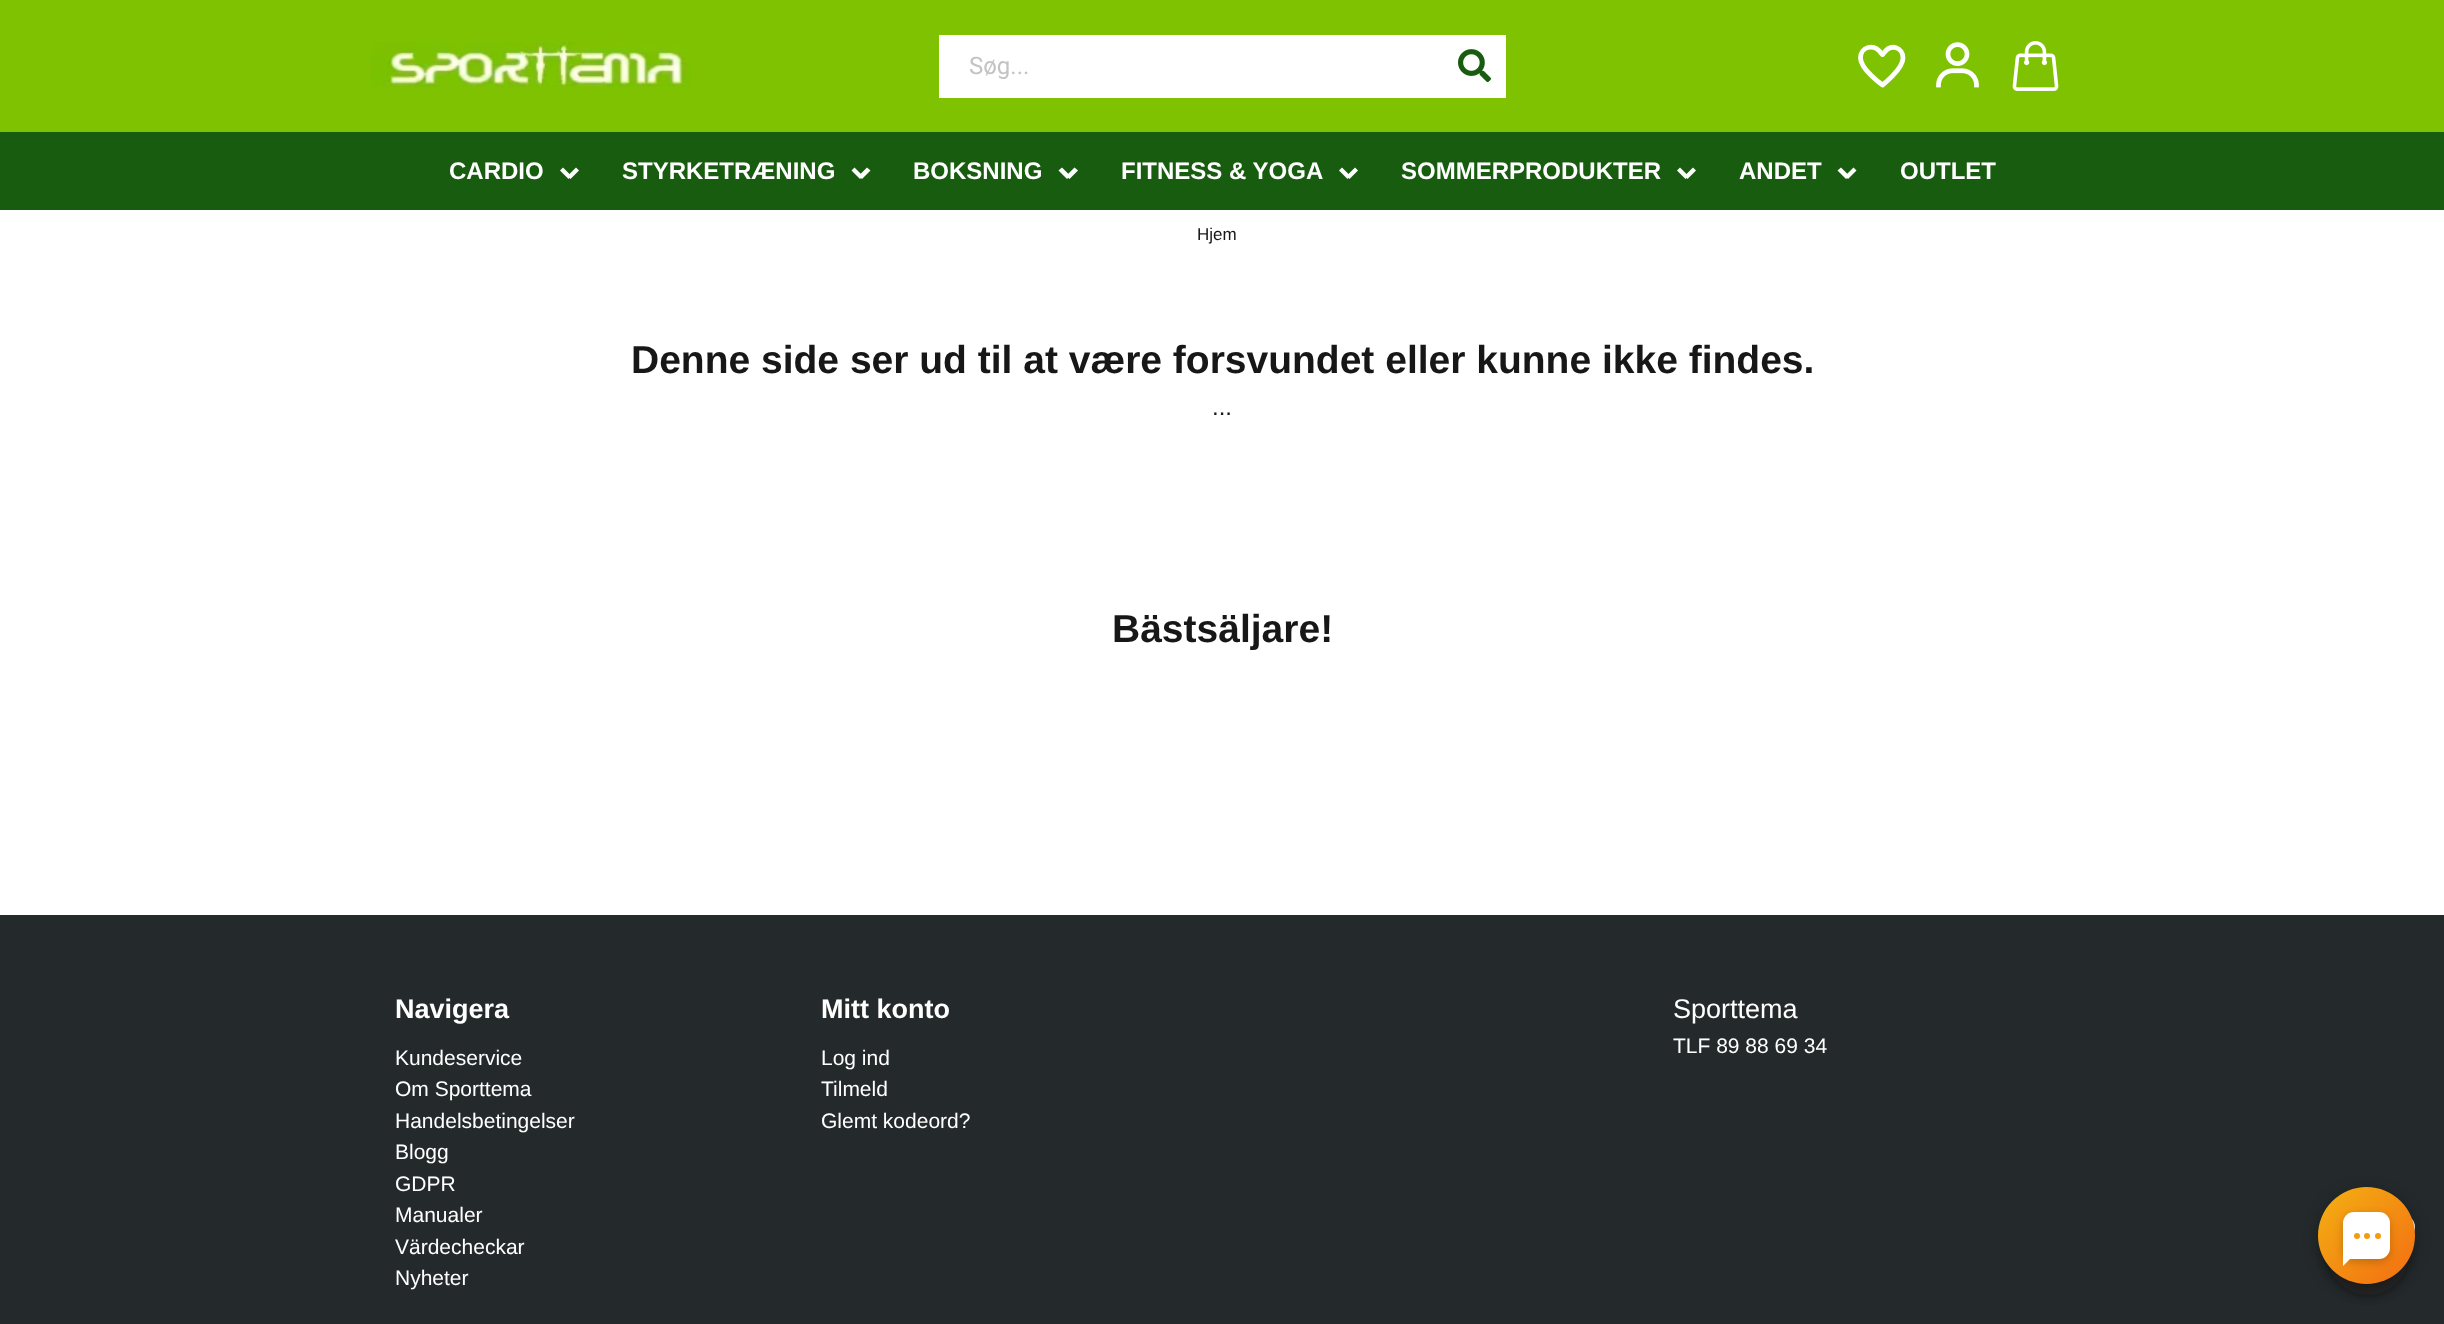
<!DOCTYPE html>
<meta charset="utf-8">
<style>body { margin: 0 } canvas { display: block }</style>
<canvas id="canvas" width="2444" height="1324"></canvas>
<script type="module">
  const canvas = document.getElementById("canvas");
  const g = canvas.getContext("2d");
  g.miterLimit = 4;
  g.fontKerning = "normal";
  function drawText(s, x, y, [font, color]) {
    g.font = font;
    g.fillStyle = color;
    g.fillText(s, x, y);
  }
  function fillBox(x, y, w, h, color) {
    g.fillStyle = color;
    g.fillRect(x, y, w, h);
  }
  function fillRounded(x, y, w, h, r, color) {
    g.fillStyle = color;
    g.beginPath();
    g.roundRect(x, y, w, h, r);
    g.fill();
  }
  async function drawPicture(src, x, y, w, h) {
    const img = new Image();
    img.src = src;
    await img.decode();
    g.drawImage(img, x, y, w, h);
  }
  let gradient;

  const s1 = ["24px Roboto", "#C3C3C3"];
  const s2 = ["bold 24px Liberation Sans", "#FFFFFF"];
  const s3 = ["17px Liberation Sans", "#171717"];
  const s4 = ["bold 39px Liberation Sans", "#171717"];
  const s5 = ["24px Liberation Sans", "#171717"];
  const s6 = ["bold 27px Liberation Sans", "#FFFFFF"];
  const s7 = ["21px Liberation Sans", "#FFFFFF"];
  const s8 = ["27px Liberation Sans", "#FFFFFF"];

  fillBox(0, 0, 2444, 1324, "#FFFFFF");
  fillBox(0, 0, 2444, 132, "#7EC201");
  await drawPicture("pic1.png", 371, 42, 320, 45);
  fillBox(939, 35, 567, 63, "#FFFFFF");
  drawText("Søg...", 969, 74, s1);
  await drawPicture("pic2.png", 1458, 49, 33, 34);
  g.beginPath();
  g.moveTo(1881.5, 53.5);
  g.bezierCurveTo(1873.5, 42.5, 1860.5, 47, 1860.5, 58);
  g.bezierCurveTo(1860.5, 69.5, 1882.5, 85, 1882.5, 85);
  g.bezierCurveTo(1882.5, 85, 1903, 69, 1903, 58);
  g.bezierCurveTo(1903, 47.5, 1891, 42.5, 1883.5, 53.5);
  g.lineTo(1882.5, 54.5);
  g.closePath();
  g.strokeStyle = "#FFFFFF";
  g.lineWidth = 4.8;
  g.lineCap = "round";
  g.lineJoin = "round";
  g.stroke();
  await drawPicture("pic3.png", 1936, 42, 43, 46);
  await drawPicture("pic4.png", 2012, 41, 47, 50);
  fillBox(0, 132, 2444, 78, "#185C0F");
  drawText("CARDIO", 449, 179, s2);
  g.beginPath();
  g.moveTo(567.5, 176);
  g.lineTo(576, 167.5);
  g.lineTo(579, 170.5);
  g.lineTo(570.5, 179);
  g.closePath();
  g.fill();
  g.beginPath();
  g.moveTo(560, 170.5);
  g.lineTo(563, 167.5);
  g.lineTo(571.5, 176);
  g.lineTo(568.5, 179);
  g.closePath();
  g.fill();
  drawText("STYRKETRÆNING", 622, 179, s2);
  g.beginPath();
  g.moveTo(858.5, 176);
  g.lineTo(867, 167.5);
  g.lineTo(870.5, 170.5);
  g.lineTo(862, 179);
  g.closePath();
  g.fill();
  g.beginPath();
  g.moveTo(851.5, 170.5);
  g.lineTo(854.5, 167.5);
  g.lineTo(863, 176);
  g.lineTo(860, 179);
  g.closePath();
  g.fill();
  drawText("BOKSNING", 913, 179, s2);
  g.beginPath();
  g.moveTo(1066, 176);
  g.lineTo(1074.5, 167.5);
  g.lineTo(1078, 170.5);
  g.lineTo(1069.5, 179);
  g.closePath();
  g.fill();
  g.beginPath();
  g.moveTo(1058.5, 170.5);
  g.lineTo(1062, 167.5);
  g.lineTo(1070.5, 176);
  g.lineTo(1067, 179);
  g.closePath();
  g.fill();
  drawText("FITNESS & YOGA", 1121, 179, s2);
  g.beginPath();
  g.moveTo(1346.5, 176);
  g.lineTo(1355, 167.5);
  g.lineTo(1358, 170.5);
  g.lineTo(1349.5, 179);
  g.closePath();
  g.fill();
  g.beginPath();
  g.moveTo(1339, 170.5);
  g.lineTo(1342, 167.5);
  g.lineTo(1350.5, 176);
  g.lineTo(1347.5, 179);
  g.closePath();
  g.fill();
  drawText("SOMMERPRODUKTER", 1401, 179, s2);
  g.beginPath();
  g.moveTo(1684.5, 176);
  g.lineTo(1693, 167.5);
  g.lineTo(1696, 170.5);
  g.lineTo(1687.5, 179);
  g.closePath();
  g.fill();
  g.beginPath();
  g.moveTo(1677, 170.5);
  g.lineTo(1680, 167.5);
  g.lineTo(1688.5, 176);
  g.lineTo(1685.5, 179);
  g.closePath();
  g.fill();
  drawText("ANDET", 1739, 179, s2);
  g.beginPath();
  g.moveTo(1845, 176);
  g.lineTo(1853.5, 167.5);
  g.lineTo(1856.5, 170.5);
  g.lineTo(1848, 179);
  g.closePath();
  g.fill();
  g.beginPath();
  g.moveTo(1837.5, 170.5);
  g.lineTo(1841, 167.5);
  g.lineTo(1849.5, 176);
  g.lineTo(1846, 179);
  g.closePath();
  g.fill();
  drawText("OUTLET", 1900, 179, s2);
  drawText("Hjem", 1197, 240, s3);
  drawText("Denne side ser ud til at være forsvundet eller kunne ikke findes.", 631, 373, s4);
  drawText("...", 1212, 415, s5);
  drawText("Bästsäljare!", 1112, 642, s4);
  fillBox(0, 915, 2444, 409, "#24292B");
  drawText("Navigera", 395, 1018, s6);
  drawText("Kundeservice", 395, 1065, s7);
  drawText("Om Sporttema", 395, 1096, s7);
  drawText("Handelsbetingelser", 395, 1128, s7);
  drawText("Blogg", 395, 1159, s7);
  drawText("GDPR", 395, 1191, s7);
  drawText("Manualer", 395, 1222, s7);
  drawText("Värdecheckar", 395, 1254, s7);
  drawText("Nyheter", 395, 1285, s7);
  drawText("Mitt konto", 821, 1018, s6);
  drawText("Log ind", 821, 1065, s7);
  drawText("Tilmeld", 821, 1096, s7);
  drawText("Glemt kodeord?", 821, 1128, s7);
  drawText("Sporttema", 1673, 1018, s8);
  drawText("TLF 89 88 69 34", 1673, 1053, s7);
  g.fillStyle = "rgba(0, 0, 0, 0.35)";
  g.filter = "blur(5px)";
  g.beginPath();
  g.roundRect(2327, 1214, 82, 82, 41);
  g.fill();
  g.filter = "none";
  fillRounded(2327, 1212, 82, 83, 41, "#252525");
  g.beginPath();
  g.arc(2403, 1227, 10.5, 0, Math.PI * 2);
  g.lineWidth = 3;
  g.stroke();
  g.fillStyle = "rgba(0, 0, 0, 0.3)";
  g.filter = "blur(7.5px)";
  g.beginPath();
  g.roundRect(2318, 1191, 97, 98, 48.5);
  g.fill();
  g.filter = "none";
  gradient = g.createLinearGradient(2318, 1187, 2415, 1284);
  gradient.addColorStop(0, "#F3B112");
  gradient.addColorStop(1, "#F36D12");
  g.fillStyle = gradient;
  g.beginPath();
  g.arc(2366.5, 1235.5, 48.5, 0, Math.PI * 2);
  g.fill();
  g.fillStyle = "rgba(0, 0, 0, 0.2)";
  g.filter = "blur(4px)";
  g.beginPath();
  g.roundRect(2343, 1215, 47, 47, 11);
  g.fill();
  g.filter = "none";
  g.fillStyle = "#FFFFFF";
  g.beginPath();
  g.roundRect(2343, 1212, 47, 47, [11, 11, 11, 0]);
  g.fill();
  g.fillStyle = "#F39C12";
  g.beginPath();
  g.arc(2357, 1236, 3, 0, Math.PI * 2);
  g.fill();
  g.beginPath();
  g.arc(2367, 1236, 3, 0, Math.PI * 2);
  g.fill();
  g.beginPath();
  g.arc(2378, 1236, 3, 0, Math.PI * 2);
  g.fill();
  g.fillStyle = "#FFFFFF";
  g.beginPath();
  g.moveTo(2343, 1266);
  g.lineTo(2343, 1251);
  g.lineTo(2358, 1251);
  g.closePath();
  g.fill();
</script>
